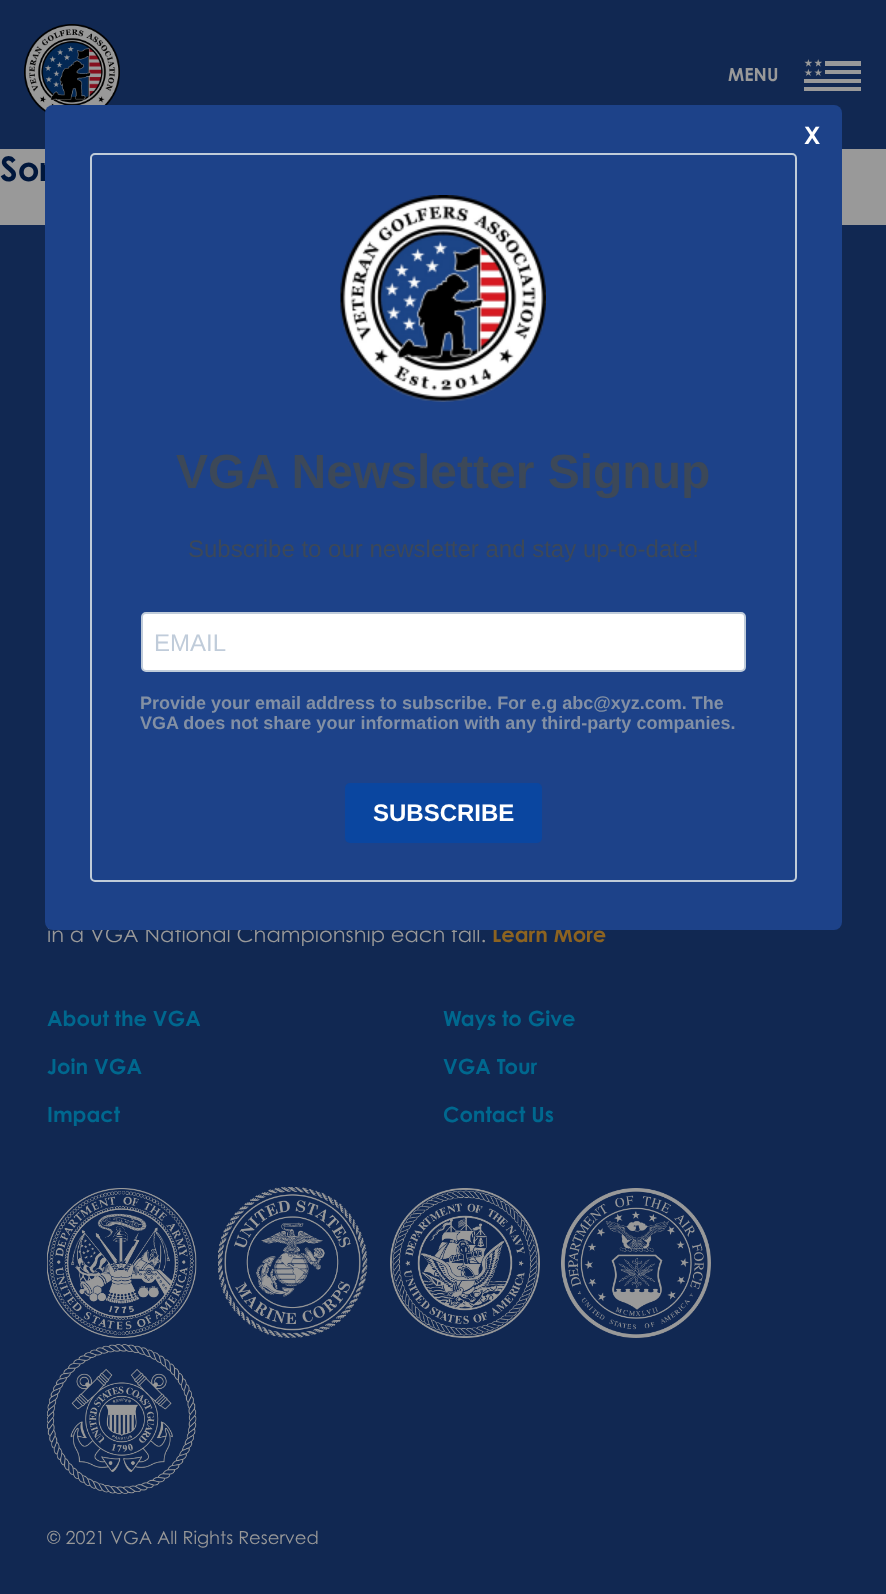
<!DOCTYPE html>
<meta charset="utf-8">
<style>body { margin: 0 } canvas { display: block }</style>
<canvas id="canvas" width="886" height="1594"></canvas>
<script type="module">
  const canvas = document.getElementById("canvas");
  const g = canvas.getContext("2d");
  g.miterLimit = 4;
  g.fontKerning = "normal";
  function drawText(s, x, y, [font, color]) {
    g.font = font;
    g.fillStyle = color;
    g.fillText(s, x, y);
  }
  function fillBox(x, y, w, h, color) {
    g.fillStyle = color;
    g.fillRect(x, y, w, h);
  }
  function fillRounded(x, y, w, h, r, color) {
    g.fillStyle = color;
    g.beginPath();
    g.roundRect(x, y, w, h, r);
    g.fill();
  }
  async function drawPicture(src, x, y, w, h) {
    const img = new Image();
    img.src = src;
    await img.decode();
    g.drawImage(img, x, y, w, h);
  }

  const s1 = ["bold 18px Century Gothic", "#999999"];
  const s2 = ["bold 34px Century Gothic", "#00173C"];
  const s3 = ["21px Century Gothic", "#999999"];
  const s4 = ["bold 21px Century Gothic", "#8C6321"];
  const s5 = ["bold 24px Century Gothic", "#FFFFFF"];
  const s6 = ["bold 48px Liberation Sans", "#3C4858"];
  const s7 = ["24px Liberation Sans", "#3C4858"];
  const s8 = ["24px Liberation Sans", "#C0CCDA"];
  const s9 = ["bold 18px Liberation Sans", "#8390A4"];
  const s10 = ["bold 24px Liberation Sans", "#FFFFFF"];
  const s11 = ["bold 21px Century Gothic", "#00688F"];
  const s12 = ["18px Century Gothic", "#999999"];

  fillBox(0, 0, 886, 1594, "#112852");
  await drawPicture("pic1.png", 24, 24, 96, 89);
  drawText("MENU", 728, 81, s1);
  await drawPicture("pic2.png", 804, 59, 57, 32);
  fillBox(0, 149, 886, 76, "#999999");
  drawText("Sor", 0, 181, s2);
  drawText("in a VGA National Championship each fall.", 47, 942, s3);
  drawText("Learn More", 492, 942, s4);
  fillRounded(45, 105, 797, 825, 8, "#1D4289");
  drawText("X", 804, 144, s5);
  g.beginPath();
  g.roundRect(91, 154, 705, 727, 4);
  g.strokeStyle = "#C0CCD9";
  g.lineWidth = 2;
  g.stroke();
  await drawPicture("pic3.png", 340, 195, 206, 207);
  drawText("VGA Newsletter Signup", 176, 488, s6);
  drawText("Subscribe to our newsletter and stay up-to-date!", 188, 557, s7);
  g.fillStyle = "#FFFFFF";
  g.beginPath();
  g.roundRect(142, 613, 603, 58, 4);
  g.fill();
  g.strokeStyle = "#C0CCDA";
  g.stroke();
  drawText("EMAIL", 154, 651, s8);
  drawText("Provide your email address to subscribe. For e.g abc@xyz.com. The", 140, 709, s9);
  drawText("VGA does not share your information with any third-party companies.", 140, 729, s9);
  fillRounded(345, 783, 197, 60, 5, "#0A46A0");
  drawText("SUBSCRIBE", 373, 821, s10);
  drawText("About the VGA", 47, 1026, s11);
  drawText("Ways to Give", 443, 1026, s11);
  drawText("Join VGA", 47, 1074, s11);
  drawText("VGA Tour", 443, 1074, s11);
  drawText("Impact", 47, 1122, s11);
  drawText("Contact Us", 443, 1122, s11);
  await drawPicture("pic4.png", 47, 1188, 150, 150);
  await drawPicture("pic5.png", 218, 1187, 150, 151);
  await drawPicture("pic6.png", 390, 1188, 150, 150);
  await drawPicture("pic7.png", 561, 1188, 150, 150);
  await drawPicture("pic8.png", 47, 1344, 150, 150);
  drawText("© 2021 VGA All Rights Reserved", 47, 1544, s12);
</script>
